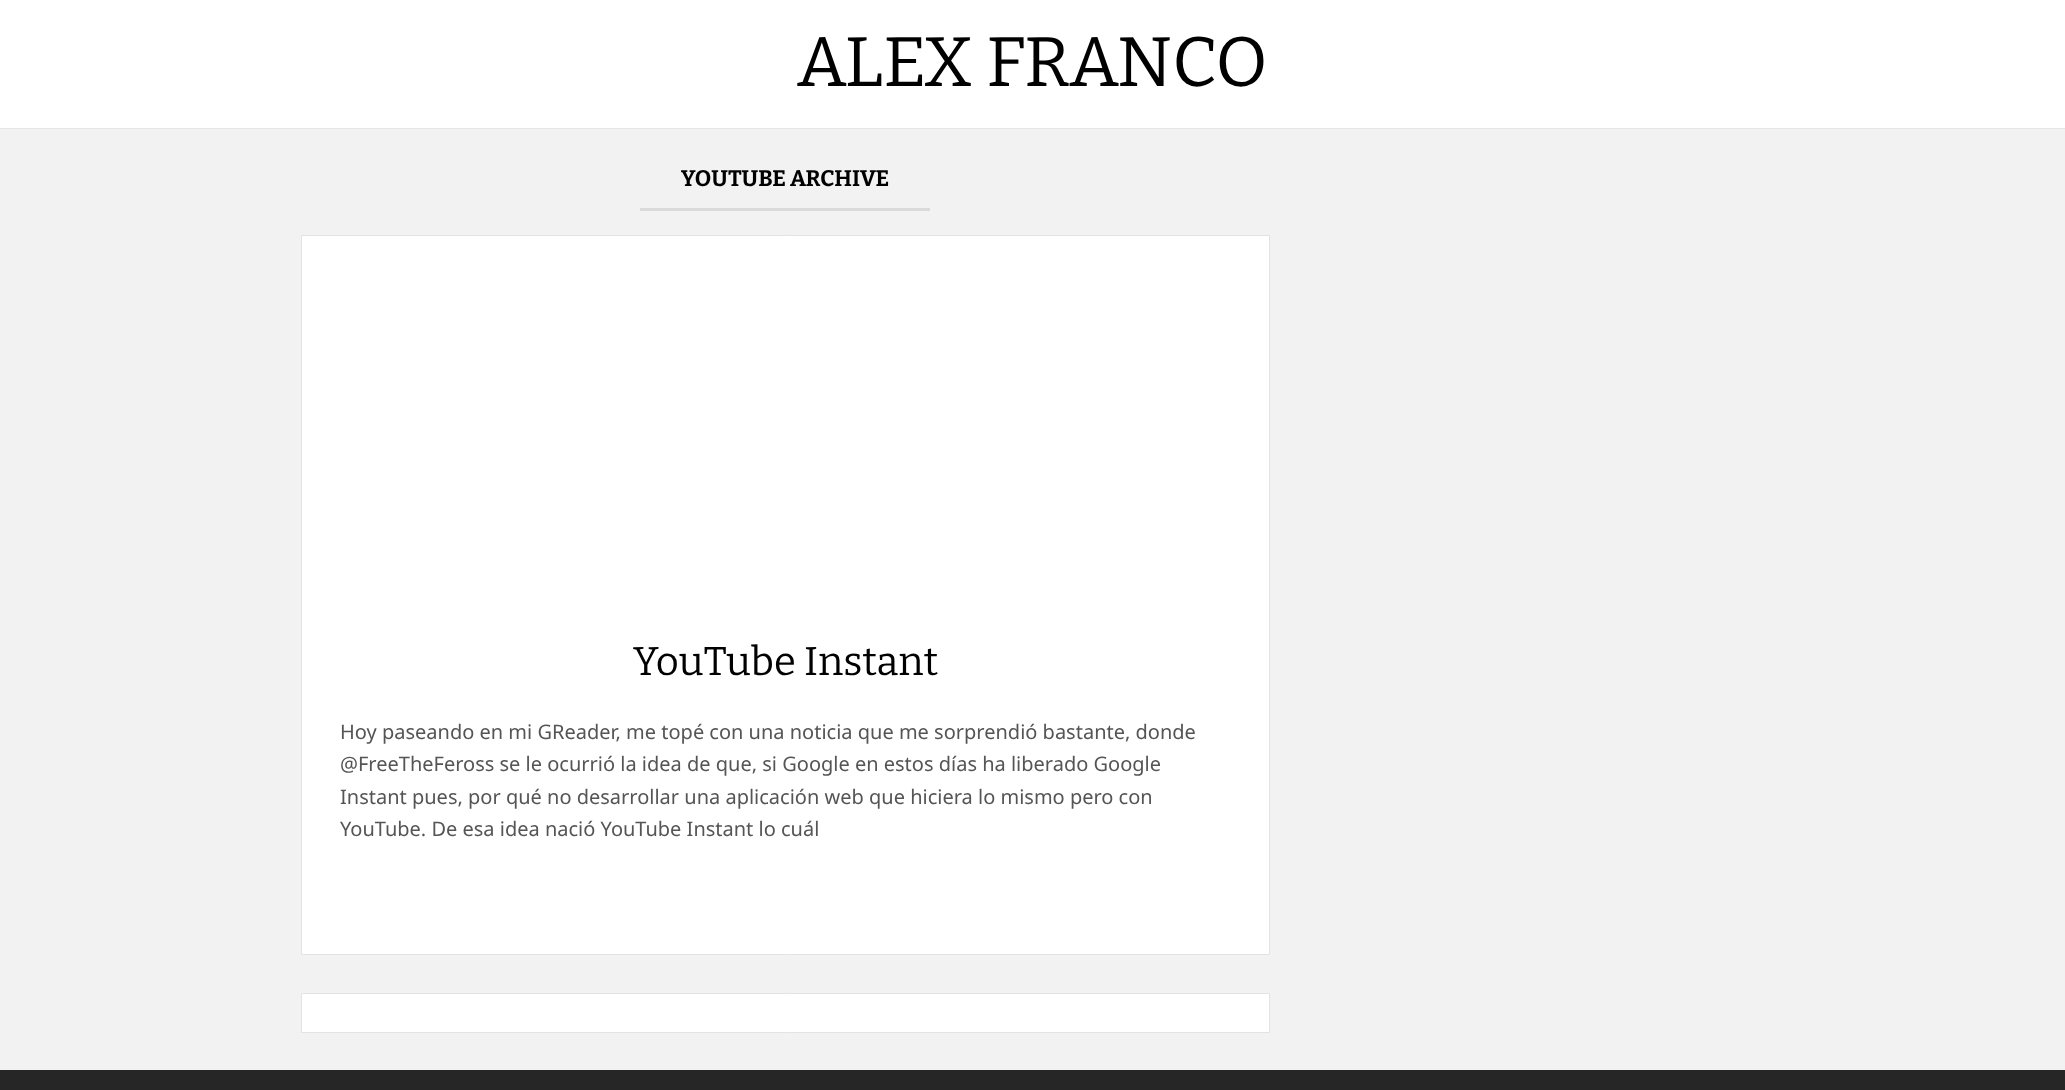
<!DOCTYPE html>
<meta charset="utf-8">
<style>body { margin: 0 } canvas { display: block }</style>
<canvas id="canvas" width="2065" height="1090"></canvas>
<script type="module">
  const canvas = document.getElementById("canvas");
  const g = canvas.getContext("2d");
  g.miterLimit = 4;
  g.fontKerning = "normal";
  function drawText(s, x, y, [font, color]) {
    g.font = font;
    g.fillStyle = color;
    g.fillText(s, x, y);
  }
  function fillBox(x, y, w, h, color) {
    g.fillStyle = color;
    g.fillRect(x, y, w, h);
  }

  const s1 = ["70px Bitter", "#000000"];
  const s2 = ["bold 22.5px Bitter", "#000000"];
  const s3 = ["40px Bitter", "#000000"];
  const s4 = ["20px Noto Sans", "#555555"];

  fillBox(0, 0, 2065, 1090, "#F2F2F2");
  fillBox(0, 0, 2065, 128, "#FFFFFF");
  drawText("ALEX FRANCO", 797, 86, s1);
  fillBox(0, 128, 2065, 1, "#E6E6E6");
  drawText("YOUTUBE ARCHIVE", 681, 186, s2);
  fillBox(640, 208, 290, 3, "#DADADA");
  g.fillStyle = "#FFFFFF";
  g.beginPath();
  g.rect(301.5, 235.5, 968, 719);
  g.fill();
  g.strokeStyle = "#E3E3E3";
  g.stroke();
  drawText("YouTube Instant", 633, 675, s3);
  drawText("Hoy paseando en mi GReader, me topé con una noticia que me sorprendió bastante, donde", 340, 739, s4);
  drawText("@FreeTheFeross se le ocurrió la idea de que, si Google en estos días ha liberado Google", 340, 771, s4);
  drawText("Instant pues, por qué no desarrollar una aplicación web que hiciera lo mismo pero con", 340, 804, s4);
  drawText("YouTube. De esa idea nació YouTube Instant lo cuál", 340, 836, s4);
  g.fillStyle = "#FFFFFF";
  g.beginPath();
  g.rect(301.5, 993.5, 968, 39);
  g.fill();
  g.stroke();
  fillBox(0, 1070, 2065, 20, "#262626");
</script>
